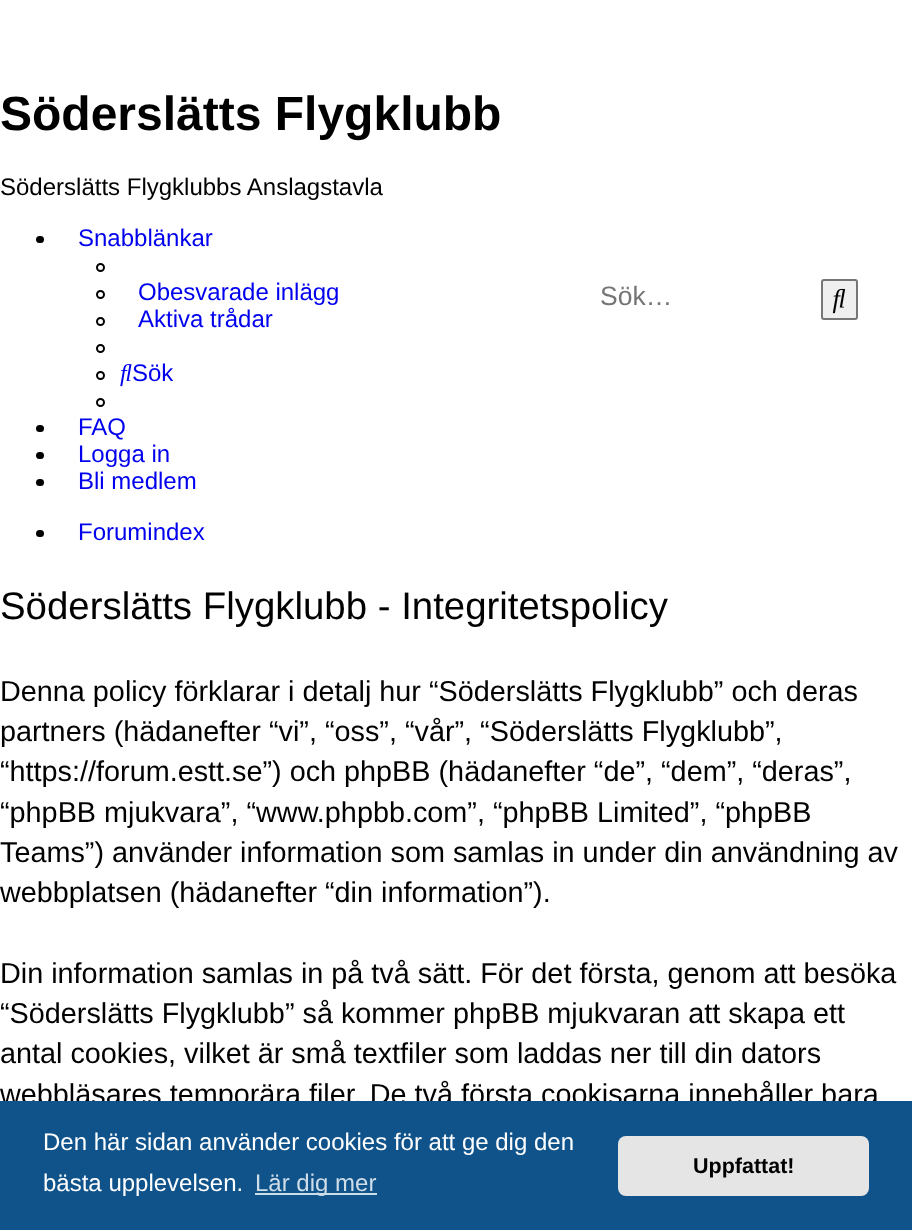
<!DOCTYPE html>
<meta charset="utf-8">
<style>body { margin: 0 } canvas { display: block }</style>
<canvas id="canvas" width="912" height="1230"></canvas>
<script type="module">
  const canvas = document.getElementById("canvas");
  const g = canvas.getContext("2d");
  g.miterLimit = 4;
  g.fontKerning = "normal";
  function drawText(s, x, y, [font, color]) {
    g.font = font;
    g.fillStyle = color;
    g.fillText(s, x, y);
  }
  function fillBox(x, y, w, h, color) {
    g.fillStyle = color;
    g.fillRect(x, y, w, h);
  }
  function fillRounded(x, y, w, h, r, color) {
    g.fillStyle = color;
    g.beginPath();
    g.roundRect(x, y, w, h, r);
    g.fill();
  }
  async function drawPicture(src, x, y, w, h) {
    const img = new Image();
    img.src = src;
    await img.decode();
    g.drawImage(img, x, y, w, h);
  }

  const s1 = ["bold 48px Liberation Sans", "#000000"];
  const s2 = ["24px Liberation Sans", "#000000"];
  const s3 = ["26.5px Liberation Sans", "#757575"];
  const s4 = ["24px Liberation Sans", "#0000EE"];
  const s5 = ["38.4px Liberation Sans", "#000000"];
  const s6 = ["28.8px Liberation Sans", "#000000"];
  const s7 = ["24px Liberation Sans", "#FFFFFF"];
  const s8 = ["24px Liberation Sans", "#CFDDE8"];
  const s9 = ["bold 21.5px Liberation Sans", "#000000"];

  fillBox(0, 0, 912, 1230, "#FFFFFF");
  drawText("Söderslätts Flygklubb", 0, 130, s1);
  drawText("Söderslätts Flygklubbs Anslagstavla", 0, 195, s2);
  drawText("Sök…", 600, 305, s3);
  g.fillStyle = "#EFEFEF";
  g.beginPath();
  g.roundRect(822, 280, 35, 39, 2);
  g.fill();
  g.strokeStyle = "#767676";
  g.lineWidth = 2;
  g.stroke();
  await drawPicture("pic1.png", 832, 288, 14, 26);
  fillRounded(36, 236, 8, 7, 3.5, "#000000");
  drawText("Snabblänkar", 78, 246, s4);
  g.beginPath();
  g.arc(100.5, 267.5, 3.5, 0, Math.PI * 2);
  g.strokeStyle = "#000000";
  g.stroke();
  g.beginPath();
  g.arc(100.5, 294.5, 3.5, 0, Math.PI * 2);
  g.stroke();
  drawText("Obesvarade inlägg", 138, 300, s4);
  g.beginPath();
  g.arc(100.5, 321.5, 3.5, 0, Math.PI * 2);
  g.stroke();
  drawText("Aktiva trådar", 138, 327, s4);
  g.beginPath();
  g.arc(100.5, 348.5, 3.5, 0, Math.PI * 2);
  g.stroke();
  g.beginPath();
  g.arc(100.5, 375.5, 3.5, 0, Math.PI * 2);
  g.stroke();
  await drawPicture("pic2.png", 120, 364, 12, 23);
  drawText("Sök", 132, 381, s4);
  g.beginPath();
  g.arc(100.5, 402.5, 3.5, 0, Math.PI * 2);
  g.stroke();
  fillRounded(36, 425, 8, 7, 3.5, "#000000");
  drawText("FAQ", 78, 435, s4);
  fillRounded(36, 452, 8, 7, 3.5, "#000000");
  drawText("Logga in", 78, 462, s4);
  fillRounded(36, 479, 8, 7, 3.5, "#000000");
  drawText("Bli medlem", 78, 489, s4);
  fillRounded(36, 530, 8, 7, 3.5, "#000000");
  drawText("Forumindex", 78, 540, s4);
  drawText("Söderslätts Flygklubb - Integritetspolicy", 0, 619, s5);
  drawText("Denna policy förklarar i detalj hur “Söderslätts Flygklubb” och deras", 0, 701, s6);
  drawText("partners (hädanefter “vi”, “oss”, “vår”, “Söderslätts Flygklubb”,", 0, 741, s6);
  drawText("“https://forum.estt.se”) och phpBB (hädanefter “de”, “dem”, “deras”,", 0, 781, s6);
  drawText("“phpBB mjukvara”, “www.phpbb.com”, “phpBB Limited”, “phpBB", 0, 822, s6);
  drawText("Teams”) använder information som samlas in under din användning av", 0, 862, s6);
  drawText("webbplatsen (hädanefter “din information”).", 0, 902, s6);
  drawText("Din information samlas in på två sätt. För det första, genom att besöka", 0, 983, s6);
  drawText("“Söderslätts Flygklubb” så kommer phpBB mjukvaran att skapa ett", 0, 1023, s6);
  drawText("antal cookies, vilket är små textfiler som laddas ner till din dators", 0, 1063, s6);
  drawText("webbläsares temporära filer. De två första cookisarna innehåller bara", 0, 1104, s6);
  fillBox(0, 1101, 912, 129, "#0F538A");
  drawText("Den här sidan använder cookies för att ge dig den", 43, 1150, s7);
  drawText("bästa upplevelsen.", 43, 1191, s7);
  fillBox(255, 1193, 122, 2, "#CFDDE8");
  drawText("Lär dig mer", 255, 1191, s8);
  fillRounded(618, 1136, 251, 60, 8, "#E5E5E5");
  drawText("Uppfattat!", 693, 1173, s9);
</script>
